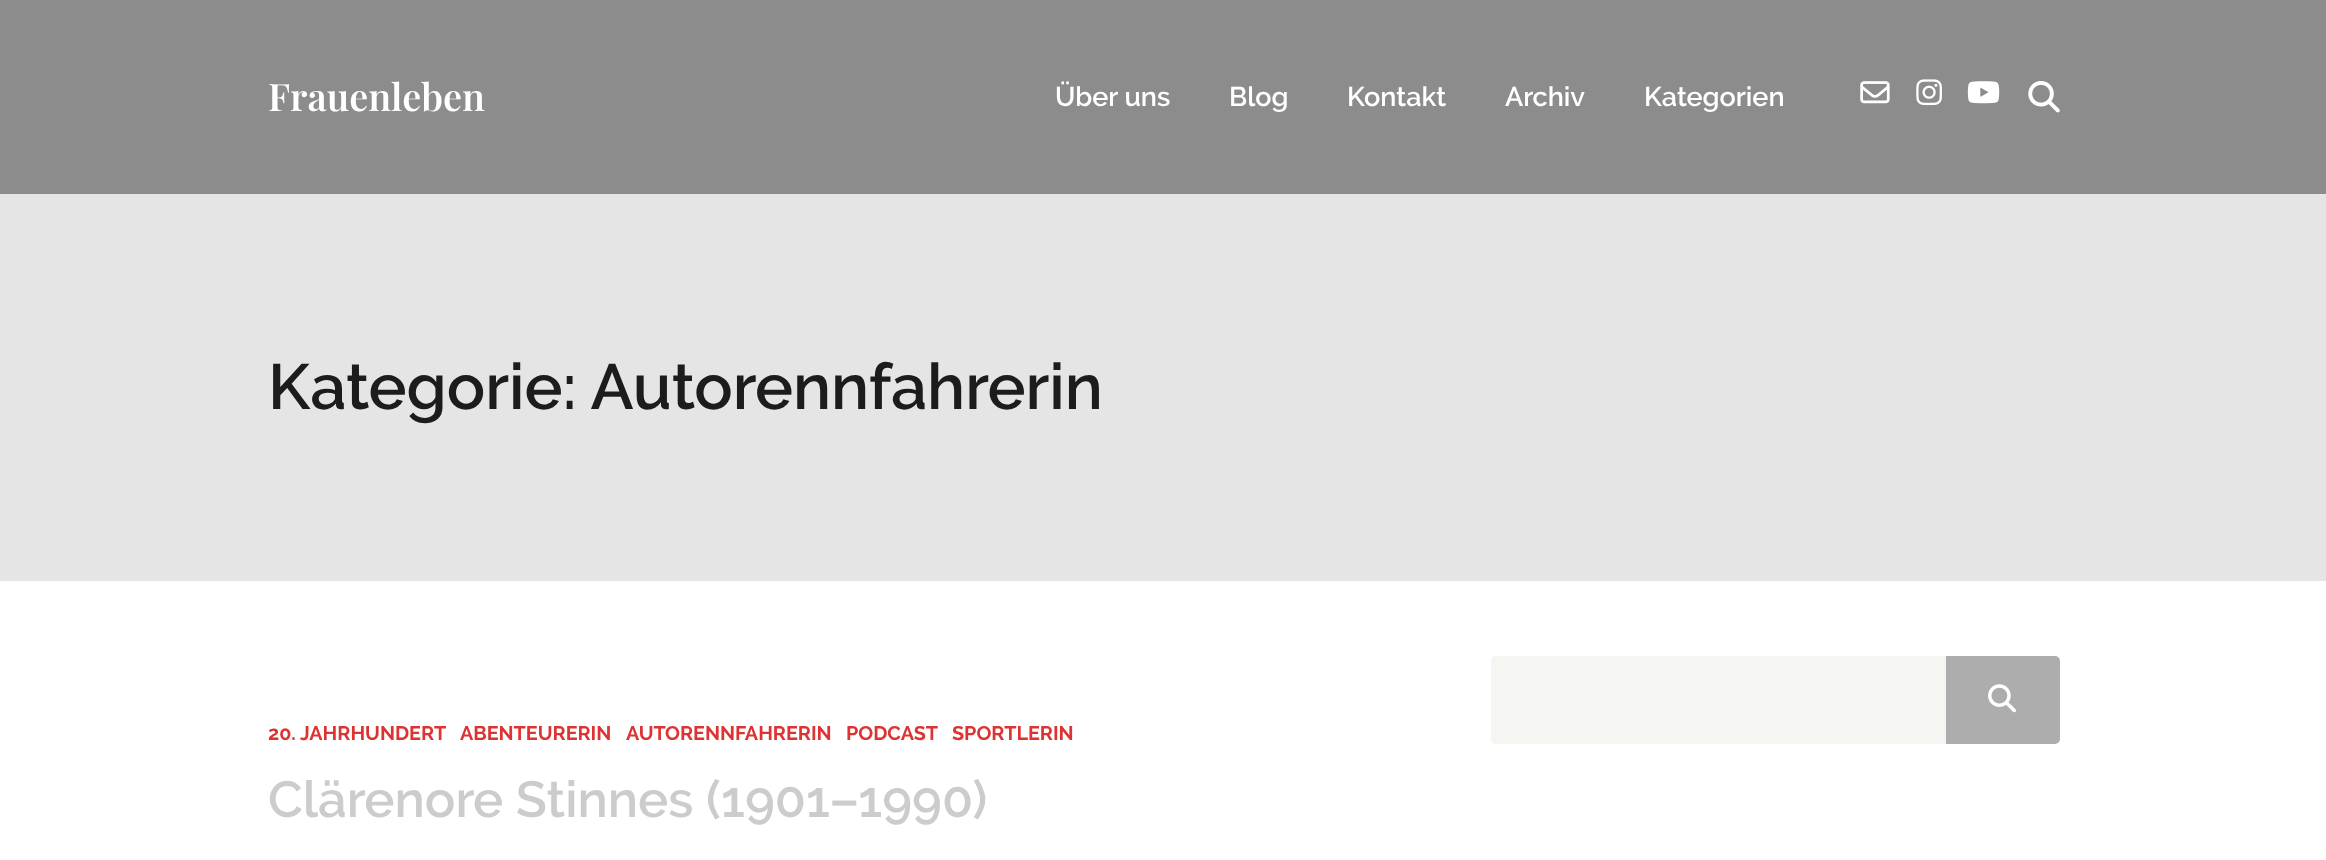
<!DOCTYPE html>
<meta charset="utf-8">
<style>body { margin: 0 } canvas { display: block }</style>
<canvas id="canvas" width="2326" height="860"></canvas>
<script type="module">
  const canvas = document.getElementById("canvas");
  const g = canvas.getContext("2d");
  g.miterLimit = 4;
  g.fontKerning = "normal";
  function drawText(s, x, y, [font, color]) {
    g.font = font;
    g.fillStyle = color;
    g.fillText(s, x, y);
  }
  function fillBox(x, y, w, h, color) {
    g.fillStyle = color;
    g.fillRect(x, y, w, h);
  }
  async function drawPicture(src, x, y, w, h) {
    const img = new Image();
    img.src = src;
    await img.decode();
    g.drawImage(img, x, y, w, h);
  }

  const s1 = ["600 37.75px Playfair Display", "#FFFFFF"];
  const s2 = ["600 27px Raleway", "#FFFFFF"];
  const s3 = ["600 63.9px Raleway", "#1C1C1C"];
  const s4 = ["bold 19.75px Raleway", "#DD3333"];
  const s5 = ["600 50.8px Raleway", "#CCCCCC"];

  fillBox(0, 0, 2326, 860, "#8C8C8C");
  drawText("Frauenleben", 268, 111, s1);
  drawText("Über uns", 1055, 106, s2);
  drawText("Blog", 1229, 106, s2);
  drawText("Kontakt", 1347, 106, s2);
  drawText("Archiv", 1505, 106, s2);
  drawText("Kategorien", 1644, 106, s2);
  await drawPicture("pic1.png", 1860, 81, 30, 23);
  await drawPicture("pic2.png", 1916, 79, 26, 27);
  await drawPicture("pic3.png", 1967, 81, 33, 23);
  await drawPicture("pic4.png", 2028, 81, 32, 32);
  fillBox(0, 194, 2326, 387, "#E5E5E5");
  drawText("Kategorie: Autorennfahrerin", 268, 409, s3);
  fillBox(0, 581, 2326, 279, "#FFFFFF");
  g.fillStyle = "#F5F5F1";
  g.beginPath();
  g.roundRect(1491, 656, 455, 88, [5, 0, 0, 5]);
  g.fill();
  g.fillStyle = "#ADADAD";
  g.beginPath();
  g.roundRect(1946, 656, 114, 88, [0, 5, 5, 0]);
  g.fill();
  await drawPicture("pic5.png", 1988, 684, 28, 29);
  drawText("20. JAHRHUNDERT", 268, 740, s4);
  drawText("ABENTEURERIN", 460, 740, s4);
  drawText("AUTORENNFAHRERIN", 626, 740, s4);
  drawText("PODCAST", 846, 740, s4);
  drawText("SPORTLERIN", 952, 740, s4);
  drawText("Clärenore Stinnes (1901–1990)", 268, 817, s5);
</script>
